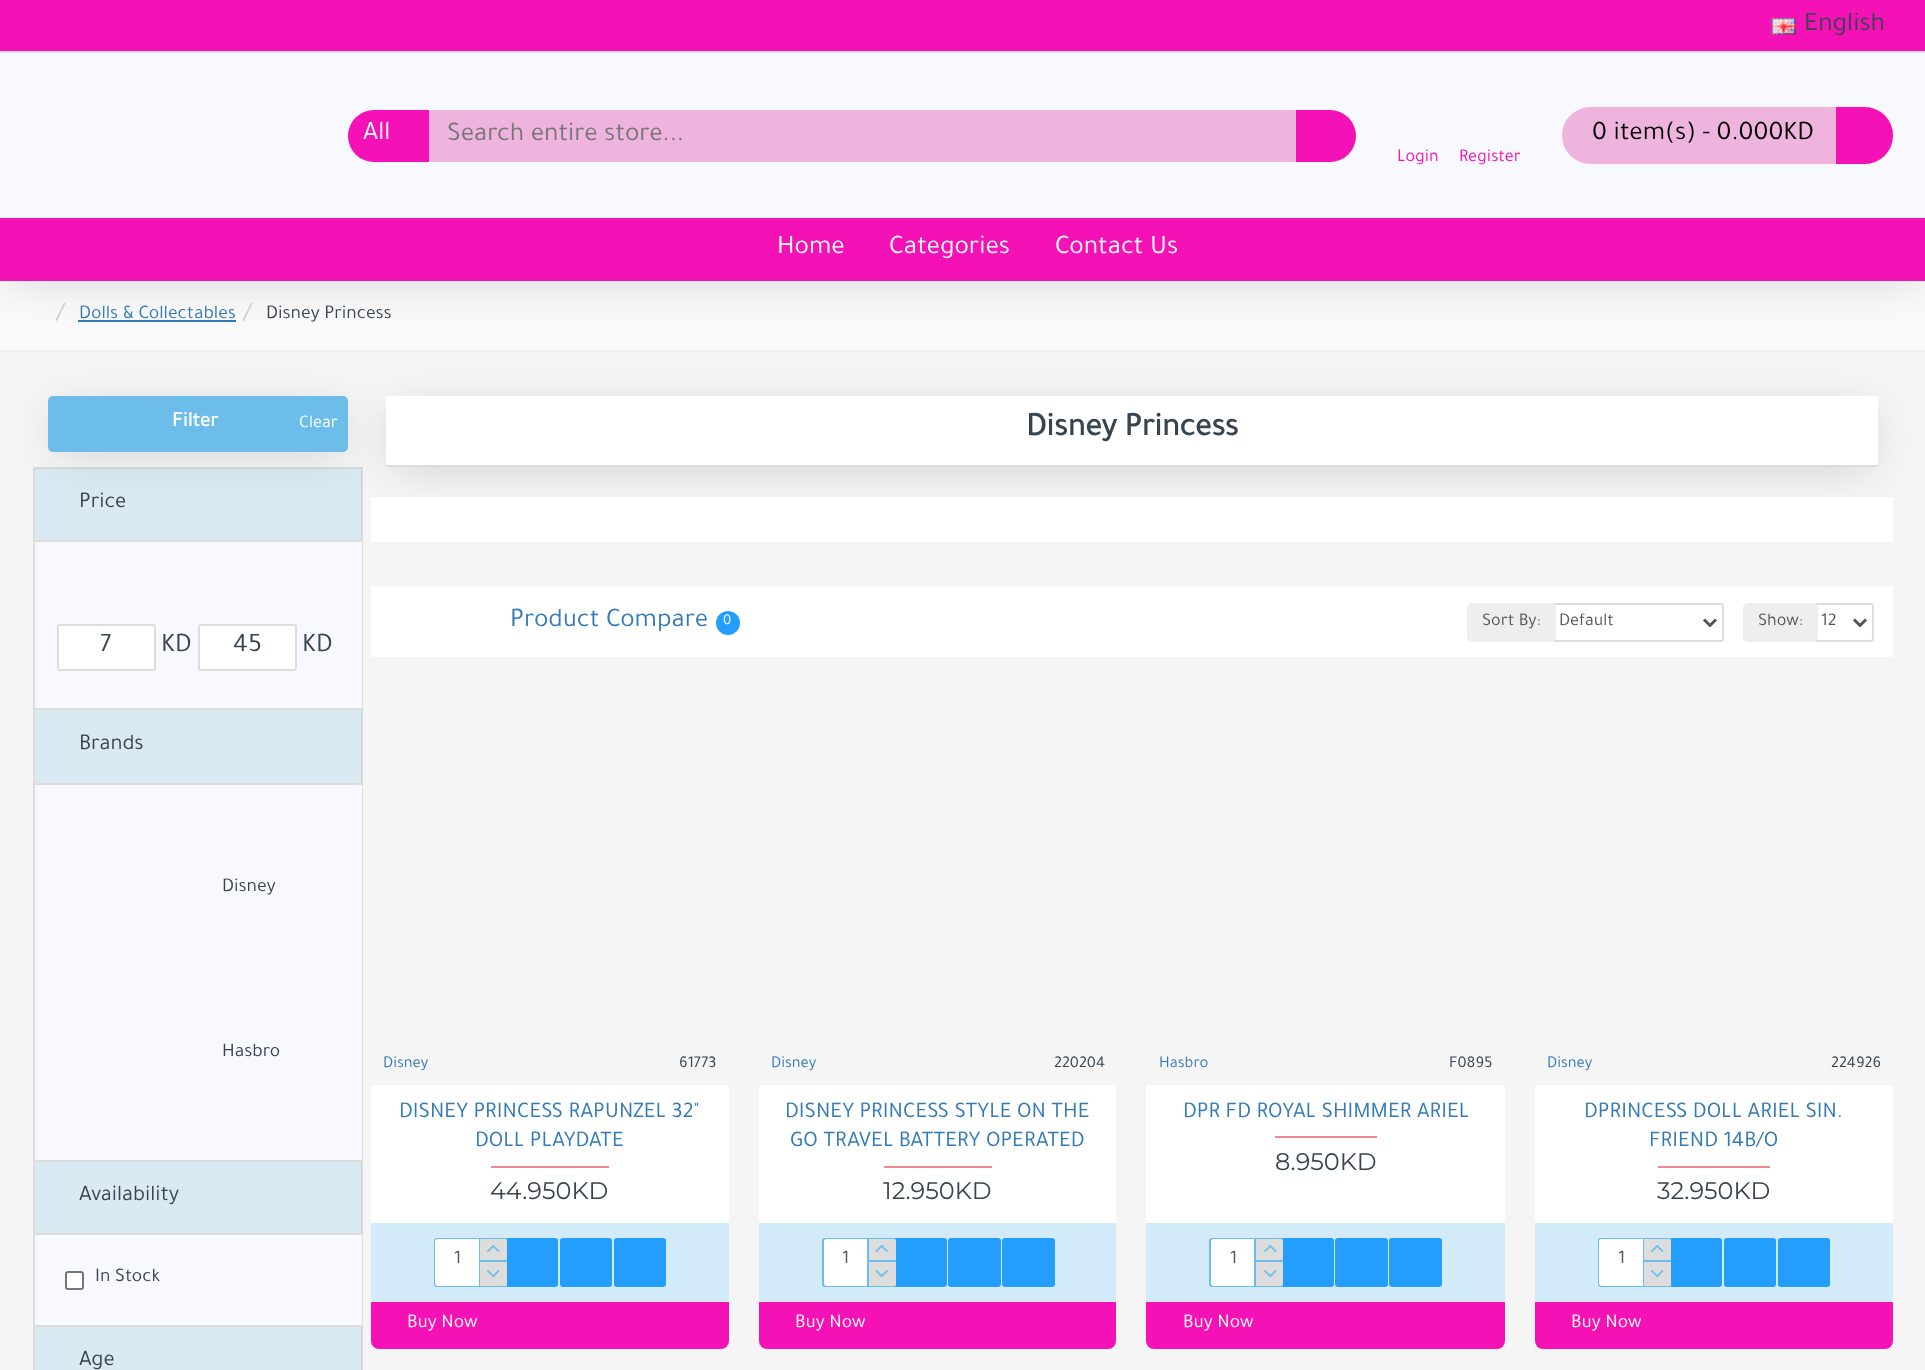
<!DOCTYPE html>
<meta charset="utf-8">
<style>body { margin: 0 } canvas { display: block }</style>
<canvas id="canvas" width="1925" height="1370"></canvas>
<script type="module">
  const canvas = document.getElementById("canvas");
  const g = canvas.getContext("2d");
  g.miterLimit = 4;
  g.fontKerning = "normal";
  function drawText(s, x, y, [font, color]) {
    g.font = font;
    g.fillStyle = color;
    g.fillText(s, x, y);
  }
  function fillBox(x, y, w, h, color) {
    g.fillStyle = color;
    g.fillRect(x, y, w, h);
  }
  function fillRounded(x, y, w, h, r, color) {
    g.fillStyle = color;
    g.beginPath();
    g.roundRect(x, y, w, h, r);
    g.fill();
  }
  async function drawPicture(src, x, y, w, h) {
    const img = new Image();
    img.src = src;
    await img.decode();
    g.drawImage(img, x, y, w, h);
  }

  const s1 = ["27px Tajawal", "#38444F"];
  const s2 = ["27px Tajawal", "#FFFFFF"];
  const s3 = ["27px Tajawal", "#757575"];
  const s4 = ["27px Tajawal", "#000000"];
  const s5 = ["18px Tajawal", "#F411B6"];
  const s6 = ["27px Tajawal", "#CCCCCC"];
  const s7 = ["19.5px Tajawal", "#337AB7"];
  const s8 = ["19.5px Tajawal", "#38444F"];
  const s9 = ["bold 21px Tajawal", "#FFFFFF"];
  const s10 = ["18px Tajawal", "#FFFFFF"];
  const s11 = ["22.5px Tajawal", "#38444F"];
  const s12 = ["bold 33px Tajawal", "#38444F"];
  const s13 = ["27px Tajawal", "#337AB7"];
  const s14 = ["15px Tajawal", "#FFFFFF"];
  const s15 = ["18px Tajawal", "#555555"];
  const s16 = ["16.5px Tajawal", "#337AB7"];
  const s17 = ["16.5px Tajawal", "#38444F"];
  const s18 = ["22.5px Tajawal", "#337AB7"];
  const s19 = ["100 24px Montserrat", "#38444F"];
  const s20 = ["19.5px Tajawal", "#555555"];
  const s21 = ["19.5px Tajawal", "#FFFFFF"];

  fillBox(0, 0, 1925, 1370, "#F5F5F5");
  fillBox(0, 281, 1925, 69, "#FAFAFA");
  fillBox(78, 320, 158, 2, "#337AB7");
  g.fillStyle = "rgba(0, 0, 0, 0.15)";
  g.filter = "blur(22.5px)";
  g.beginPath();
  g.rect(8, 15, 1911, 266);
  g.fill();
  g.filter = "none";
  fillBox(0, 53, 1925, 165, "#F7F9FF");
  fillBox(0, 0, 1925, 51, "#F411B6");
  fillBox(0, 51, 1925, 2, "#DDDDDD");
  await drawPicture("pic1.png", 1771, 18, 25, 17);
  drawText("English", 1804, 30, s1);
  g.fillStyle = "#F411B6";
  g.beginPath();
  g.roundRect(348, 110, 81, 52, [26, 0, 0, 26]);
  g.fill();
  drawText("All", 363, 139, s2);
  fillBox(429, 110, 867, 52, "#EEB4DE");
  drawText("Search entire store...", 447, 140, s3);
  g.fillStyle = "#F411B6";
  g.beginPath();
  g.roundRect(1296, 110, 60, 52, [0, 26, 26, 0]);
  g.fill();
  fillRounded(1562, 107, 331, 57, 28.5, "#EEB4DE");
  drawText("0 item(s) - 0.000KD", 1592, 139, s4);
  g.fillStyle = "#F411B6";
  g.beginPath();
  g.roundRect(1836, 107, 57, 57, [0, 28.5, 28.5, 0]);
  g.fill();
  drawText("Login", 1397, 161, s5);
  drawText("Register", 1459, 161, s5);
  fillBox(0, 218, 1925, 63, "#F411B6");
  drawText("Home", 777, 253, s2);
  drawText("Categories", 889, 253, s2);
  drawText("Contact Us", 1055, 253, s2);
  fillBox(0, 350, 1925, 2, "#EEEEEE");
  drawText("/", 56, 320, s6);
  drawText("Dolls & Collectables", 79, 318, s7);
  drawText("/", 243, 320, s6);
  drawText("Disney Princess", 266, 318, s8);
  g.strokeStyle = "#DDDDDD";
  g.lineWidth = 2;
  g.strokeRect(34, 468, 328, 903);
  g.fillStyle = "rgba(0, 0, 0, 0.15)";
  g.filter = "blur(22.5px)";
  g.beginPath();
  g.rect(56, 411, 285, 41);
  g.fill();
  g.filter = "none";
  fillRounded(48, 396, 300, 56, 5, "#6CBDEA");
  drawText("Filter", 172, 426, s9);
  drawText("Clear", 299, 427, s10);
  g.fillStyle = "rgba(0, 0, 0, 0.15)";
  g.filter = "blur(22.5px)";
  g.beginPath();
  g.rect(393, 411, 1478, 56);
  g.fill();
  g.filter = "none";
  fillBox(35, 468, 327, 72, "rgba(108, 189, 234, 0.2)");
  fillBox(35, 540, 327, 2, "#DDDDDD");
  drawText("Price", 79, 507, s11);
  fillBox(35, 542, 327, 166, "#F7F9FF");
  g.fillStyle = "#FFFFFF";
  g.beginPath();
  g.roundRect(58, 625, 97, 45, 2);
  g.fill();
  g.stroke();
  drawText("7", 100, 651, s1);
  drawText("KD", 161, 651, s1);
  g.fillStyle = "#FFFFFF";
  g.beginPath();
  g.roundRect(199, 625, 97, 45, 2);
  g.fill();
  g.stroke();
  drawText("45", 233, 651, s1);
  drawText("KD", 302, 651, s1);
  fillBox(35, 710, 327, 73, "rgba(108, 189, 234, 0.2)");
  fillBox(35, 708, 327, 2, "#DDDDDD");
  fillBox(35, 783, 327, 2, "#DDDDDD");
  drawText("Brands", 79, 749, s11);
  fillBox(35, 785, 327, 375, "#F7F9FF");
  drawText("Disney", 222, 891, s8);
  drawText("Hasbro", 222, 1056, s8);
  fillBox(35, 1162, 327, 71, "rgba(108, 189, 234, 0.2)");
  fillBox(35, 1160, 327, 2, "#DDDDDD");
  fillBox(35, 1233, 327, 2, "#DDDDDD");
  drawText("Availability", 79, 1200, s11);
  fillBox(35, 1235, 327, 90, "#F7F9FF");
  g.fillStyle = "#FFFFFF";
  g.beginPath();
  g.roundRect(66, 1272, 17, 17, 2);
  g.fill();
  g.strokeStyle = "#767676";
  g.stroke();
  drawText("In Stock", 95, 1281, s8);
  fillBox(35, 1327, 327, 43, "rgba(108, 189, 234, 0.2)");
  fillBox(35, 1325, 327, 2, "#DDDDDD");
  drawText("Age", 79, 1365, s11);
  fillBox(386, 396, 1492, 69, "#FFFFFF");
  fillBox(386, 465, 1492, 2, "#DDDDDD");
  drawText("Disney Princess", 1026, 435, s12);
  fillBox(371, 497, 1522, 45, "#FFFFFF");
  fillBox(371, 587, 1522, 70, "#FFFFFF");
  drawText("Product Compare", 510, 626, s13);
  g.fillStyle = "#249EFD";
  g.beginPath();
  g.arc(728, 623, 12, 0, Math.PI * 2);
  g.fill();
  drawText("0", 723, 624, s14);
  g.beginPath();
  g.roundRect(1552, 604, 171, 37, 2);
  g.strokeStyle = "#DDDDDD";
  g.stroke();
  fillRounded(1467, 603, 89, 39, 5, "#EEEEEE");
  drawText("Sort By:", 1482, 625, s15);
  g.beginPath();
  g.moveTo(1704, 619.5);
  g.lineTo(1710, 625.5);
  g.lineTo(1716, 619.5);
  g.strokeStyle = "#555555";
  g.lineWidth = 3;
  g.stroke();
  drawText("Default", 1559, 625, s15);
  g.beginPath();
  g.roundRect(1815, 604, 58, 37, 2);
  g.strokeStyle = "#DDDDDD";
  g.lineWidth = 2;
  g.stroke();
  fillRounded(1743, 603, 75, 39, 5, "#EEEEEE");
  drawText("Show:", 1758, 625, s15);
  g.beginPath();
  g.moveTo(1854, 619.5);
  g.lineTo(1860, 625.5);
  g.lineTo(1866, 619.5);
  g.strokeStyle = "#555555";
  g.lineWidth = 3;
  g.stroke();
  drawText("12", 1821, 625, s15);
  g.fillStyle = "#FFFFFF";
  g.beginPath();
  g.roundRect(371, 1046, 358, 303, [0, 0, 8, 8]);
  g.fill();
  fillBox(371, 1046, 358, 39, "#F5F5F5");
  drawText("Disney", 383, 1067, s16);
  drawText("61773", 679, 1067, s17);
  drawText("DISNEY PRINCESS RAPUNZEL 32\"", 399, 1117, s18);
  drawText("DOLL PLAYDATE", 475, 1146, s18);
  fillBox(491, 1166, 118, 2, "#F18A8F");
  drawText("44.950KD", 490, 1199, s19);
  fillBox(371, 1223, 358, 79, "#D3EBF9");
  g.beginPath();
  g.roundRect(435, 1239, 73, 47, 2);
  g.strokeStyle = "#6CBDEA";
  g.lineWidth = 2;
  g.stroke();
  g.fillStyle = "#F411B6";
  g.beginPath();
  g.roundRect(371, 1302, 358, 47, [0, 0, 8, 8]);
  g.fill();
  g.save();
  g.beginPath();
  g.roundRect(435, 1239, 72, 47, 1.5);
  g.clip();
  g.fillStyle = "rgba(0, 0, 0, 0.15)";
  g.filter = "blur(11px)";
  g.beginPath();
  g.rect(438, 1245, 66, 41);
  g.fill();
  g.filter = "none";
  g.restore();
  fillRounded(435, 1239, 72, 47, 3, "#FFFFFF");
  drawText("1", 454, 1263, s20);
  fillBox(479, 1239, 1, 47, "#6CBDEA");
  fillRounded(506, 1238, 52, 49, 3, "#249EFD");
  g.fillStyle = "#DDDDDD";
  g.beginPath();
  g.roundRect(480, 1239, 27, 21, [0, 1.5, 0, 0]);
  g.fill();
  fillBox(480, 1260, 27, 2, "#6CBDEA");
  await drawPicture("pic2.png", 487, 1244, 13, 8);
  g.fillStyle = "#DDDDDD";
  g.beginPath();
  g.roundRect(480, 1262, 27, 24, [0, 0, 1.5, 0]);
  g.fill();
  await drawPicture("pic3.png", 487, 1270, 13, 8);
  fillRounded(560, 1238, 52, 49, 3, "#249EFD");
  fillRounded(614, 1238, 52, 49, 3, "#249EFD");
  drawText("Buy Now", 407, 1327, s21);
  g.beginPath();
  g.roundRect(759, 1046, 357, 303, [0, 0, 8, 8]);
  g.fill();
  fillBox(759, 1046, 357, 39, "#F5F5F5");
  drawText("Disney", 771, 1067, s16);
  drawText("220204", 1054, 1067, s17);
  drawText("DISNEY PRINCESS STYLE ON THE", 785, 1117, s18);
  drawText("GO TRAVEL BATTERY OPERATED", 790, 1146, s18);
  fillBox(884, 1166, 108, 2, "#F18A8F");
  drawText("12.950KD", 883, 1199, s19);
  fillBox(759, 1223, 357, 79, "#D3EBF9");
  g.beginPath();
  g.roundRect(823, 1239, 73, 47, 2);
  g.stroke();
  g.fillStyle = "#F411B6";
  g.beginPath();
  g.roundRect(759, 1302, 357, 47, [0, 0, 8, 8]);
  g.fill();
  g.save();
  g.beginPath();
  g.roundRect(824, 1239, 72, 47, 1.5);
  g.clip();
  g.fillStyle = "rgba(0, 0, 0, 0.15)";
  g.filter = "blur(11px)";
  g.beginPath();
  g.rect(827, 1245, 66, 41);
  g.fill();
  g.filter = "none";
  g.restore();
  fillRounded(824, 1239, 72, 47, 3, "#FFFFFF");
  drawText("1", 842, 1263, s20);
  fillBox(867, 1239, 2, 47, "#6CBDEA");
  fillRounded(894, 1238, 53, 49, 3, "#249EFD");
  g.fillStyle = "#DDDDDD";
  g.beginPath();
  g.roundRect(869, 1239, 27, 21, [0, 1.5, 0, 0]);
  g.fill();
  fillBox(869, 1260, 27, 2, "#6CBDEA");
  await drawPicture("pic4.png", 875, 1244, 13, 8);
  g.fillStyle = "#DDDDDD";
  g.beginPath();
  g.roundRect(869, 1262, 27, 24, [0, 0, 1.5, 0]);
  g.fill();
  await drawPicture("pic5.png", 875, 1270, 13, 8);
  fillRounded(948, 1238, 53, 49, 3, "#249EFD");
  fillRounded(1002, 1238, 53, 49, 3, "#249EFD");
  drawText("Buy Now", 795, 1327, s21);
  g.beginPath();
  g.roundRect(1146, 1046, 359, 303, [0, 0, 8, 8]);
  g.fill();
  fillBox(1146, 1046, 359, 39, "#F5F5F5");
  drawText("Hasbro", 1159, 1067, s16);
  drawText("F0895", 1449, 1067, s17);
  drawText("DPR FD ROYAL SHIMMER ARIEL", 1183, 1117, s18);
  fillBox(1275, 1136, 102, 2, "#F18A8F");
  drawText("8.950KD", 1275, 1170, s19);
  fillBox(1146, 1223, 359, 79, "#D3EBF9");
  g.beginPath();
  g.roundRect(1210, 1239, 73, 47, 2);
  g.stroke();
  g.fillStyle = "#F411B6";
  g.beginPath();
  g.roundRect(1146, 1302, 359, 47, [0, 0, 8, 8]);
  g.fill();
  g.save();
  g.beginPath();
  g.roundRect(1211, 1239, 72, 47, 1.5);
  g.clip();
  g.fillStyle = "rgba(0, 0, 0, 0.15)";
  g.filter = "blur(11px)";
  g.beginPath();
  g.rect(1214, 1245, 66, 41);
  g.fill();
  g.filter = "none";
  g.restore();
  fillRounded(1211, 1239, 72, 47, 3, "#FFFFFF");
  drawText("1", 1230, 1263, s20);
  fillBox(1254, 1239, 2, 47, "#6CBDEA");
  fillRounded(1281, 1238, 53, 49, 3, "#249EFD");
  g.fillStyle = "#DDDDDD";
  g.beginPath();
  g.roundRect(1256, 1239, 27, 21, [0, 1.5, 0, 0]);
  g.fill();
  fillBox(1256, 1260, 27, 2, "#6CBDEA");
  await drawPicture("pic2.png", 1264, 1244, 13, 8);
  g.fillStyle = "#DDDDDD";
  g.beginPath();
  g.roundRect(1256, 1262, 27, 24, [0, 0, 1.5, 0]);
  g.fill();
  await drawPicture("pic3.png", 1264, 1270, 13, 8);
  fillRounded(1335, 1238, 53, 49, 3, "#249EFD");
  fillRounded(1389, 1238, 53, 49, 3, "#249EFD");
  drawText("Buy Now", 1183, 1327, s21);
  g.beginPath();
  g.roundRect(1535, 1046, 358, 303, [0, 0, 8, 8]);
  g.fill();
  fillBox(1535, 1046, 358, 39, "#F5F5F5");
  drawText("Disney", 1547, 1067, s16);
  drawText("224926", 1831, 1067, s17);
  drawText("DPRINCESS DOLL ARIEL SIN.", 1584, 1117, s18);
  drawText("FRIEND 14B/O", 1649, 1146, s18);
  fillBox(1658, 1166, 112, 2, "#F18A8F");
  drawText("32.950KD", 1657, 1199, s19);
  fillBox(1535, 1223, 358, 79, "#D3EBF9");
  g.beginPath();
  g.roundRect(1599, 1239, 73, 47, 2);
  g.stroke();
  g.fillStyle = "#F411B6";
  g.beginPath();
  g.roundRect(1535, 1302, 358, 47, [0, 0, 8, 8]);
  g.fill();
  g.save();
  g.beginPath();
  g.roundRect(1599, 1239, 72, 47, 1.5);
  g.clip();
  g.fillStyle = "rgba(0, 0, 0, 0.15)";
  g.filter = "blur(11px)";
  g.beginPath();
  g.rect(1602, 1245, 66, 41);
  g.fill();
  g.filter = "none";
  g.restore();
  fillRounded(1599, 1239, 72, 47, 3, "#FFFFFF");
  drawText("1", 1618, 1263, s20);
  fillBox(1643, 1239, 1, 47, "#6CBDEA");
  fillRounded(1670, 1238, 52, 49, 3, "#249EFD");
  g.fillStyle = "#DDDDDD";
  g.beginPath();
  g.roundRect(1644, 1239, 27, 21, [0, 1.5, 0, 0]);
  g.fill();
  fillBox(1644, 1260, 27, 2, "#6CBDEA");
  await drawPicture("pic2.png", 1651, 1244, 13, 8);
  g.fillStyle = "#DDDDDD";
  g.beginPath();
  g.roundRect(1644, 1262, 27, 24, [0, 0, 1.5, 0]);
  g.fill();
  await drawPicture("pic3.png", 1651, 1270, 13, 8);
  fillRounded(1724, 1238, 52, 49, 3, "#249EFD");
  fillRounded(1778, 1238, 52, 49, 3, "#249EFD");
  drawText("Buy Now", 1571, 1327, s21);
</script>
